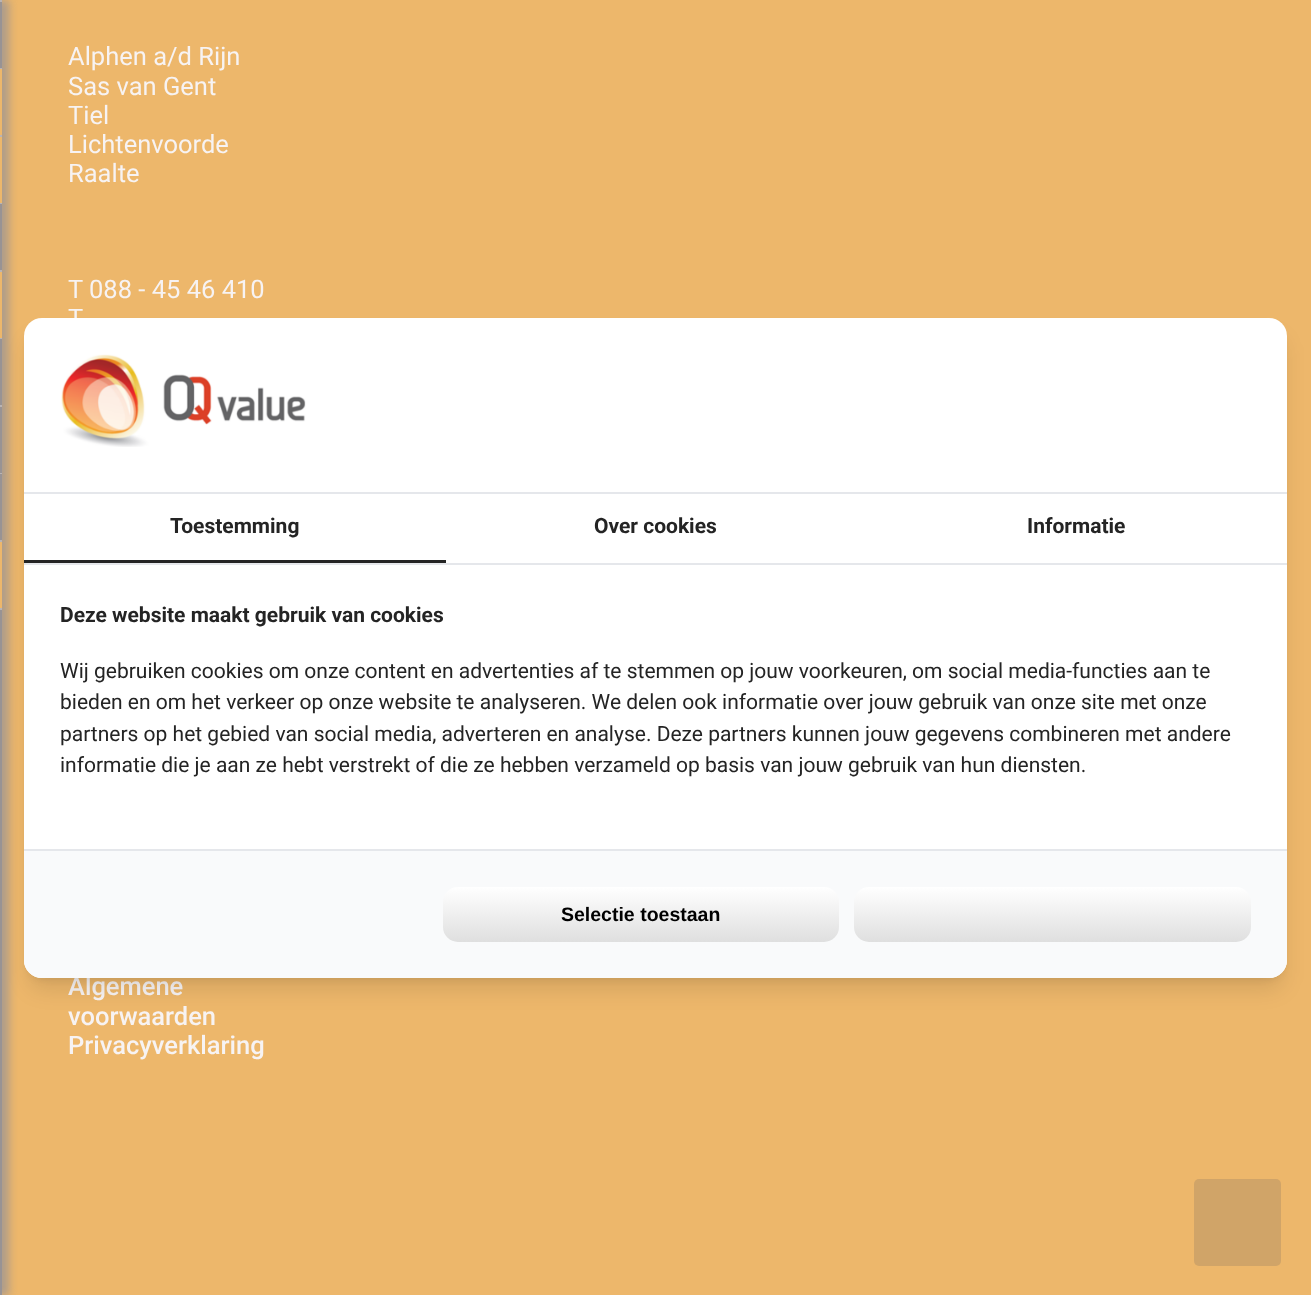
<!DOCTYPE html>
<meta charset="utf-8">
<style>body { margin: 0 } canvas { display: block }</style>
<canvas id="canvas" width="1311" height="1295"></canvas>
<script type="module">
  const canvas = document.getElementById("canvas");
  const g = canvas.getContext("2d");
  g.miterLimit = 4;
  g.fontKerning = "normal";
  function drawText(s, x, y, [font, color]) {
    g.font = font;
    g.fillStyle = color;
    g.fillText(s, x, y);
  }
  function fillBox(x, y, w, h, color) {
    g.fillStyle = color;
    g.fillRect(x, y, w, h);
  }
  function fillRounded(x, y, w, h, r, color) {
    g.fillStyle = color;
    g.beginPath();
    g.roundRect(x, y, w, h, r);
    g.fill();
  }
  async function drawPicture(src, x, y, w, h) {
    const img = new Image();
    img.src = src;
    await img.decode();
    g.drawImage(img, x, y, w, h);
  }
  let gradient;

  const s1 = ["25.5px Roboto", "#F7F3F3"];
  const s2 = ["500 25.5px Roboto", "#F7F3F3"];
  const s3 = ["bold 21px Roboto", "#242424"];
  const s4 = ["21px Roboto", "#242424"];
  const s5 = ["bold 19.5px Liberation Sans", "#000000"];

  fillBox(0, 0, 1311, 1295, "#EDB76B");
  g.fillStyle = "rgba(152, 147, 148, 0.75)";
  g.filter = "blur(4px)";
  g.beginPath();
  g.rect(-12, 0, 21, 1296);
  g.fill();
  g.filter = "none";
  fillBox(0, 0, 2, 1295, "#989394");
  fillBox(0, 0, 2, 2, "#B9B4B4");
  fillBox(0, 68, 2, 1, "#B9B4B4");
  fillBox(0, 135, 2, 2, "#B9B4B4");
  fillBox(0, 69, 2, 66, "#EDB76B");
  fillBox(0, 203, 2, 1, "#B9B4B4");
  fillBox(0, 137, 2, 66, "#EDB76B");
  fillBox(0, 270, 2, 2, "#B9B4B4");
  fillBox(0, 338, 2, 1, "#B9B4B4");
  fillBox(0, 272, 2, 66, "#EDB76B");
  fillBox(0, 405, 2, 2, "#B9B4B4");
  fillBox(0, 473, 2, 1, "#B9B4B4");
  fillBox(0, 540, 2, 2, "#B9B4B4");
  fillBox(0, 608, 2, 2, "#B9B4B4");
  fillBox(0, 542, 2, 66, "#EDB76B");
  drawText("Alphen a/d Rijn", 68, 65, s1);
  drawText("Sas van Gent", 68, 95, s1);
  drawText("Tiel", 68, 124, s1);
  drawText("Lichtenvoorde", 68, 153, s1);
  drawText("Raalte", 68, 182, s1);
  drawText("T 088 - 45 46 410", 68, 298, s1);
  drawText("T", 68, 327, s1);
  drawText("Algemene", 68, 995, s2);
  drawText("voorwaarden", 68, 1025, s2);
  drawText("Privacyverklaring", 68, 1054, s2);
  g.fillStyle = "rgba(0, 0, 0, 0.1)";
  g.filter = "blur(4.5px)";
  g.beginPath();
  g.roundRect(30, 330, 1251, 648, 12);
  g.fill();
  g.filter = "none";
  g.filter = "blur(11px)";
  g.beginPath();
  g.roundRect(29, 338, 1254, 651, 14);
  g.fill();
  g.filter = "none";
  fillRounded(24, 318, 1263, 660, 18, "#FFFFFF");
  fillBox(24, 492, 1263, 2, "#E5E7EB");
  await drawPicture("pic1.png", 61, 354, 245, 93);
  fillBox(24, 563, 1263, 2, "#E5E7EB");
  fillBox(24, 560, 422, 3, "#242424");
  drawText("Toestemming", 170, 533, s3);
  drawText("Over cookies", 594, 533, s3);
  drawText("Informatie", 1027, 533, s3);
  drawText("Deze website maakt gebruik van cookies", 60, 622, s3);
  drawText("Wij gebruiken cookies om onze content en advertenties af te stemmen op jouw voorkeuren, om social media-functies aan te", 60, 678, s4);
  drawText("bieden en om het verkeer op onze website te analyseren. We delen ook informatie over jouw gebruik van onze site met onze", 60, 709, s4);
  drawText("partners op het gebied van social media, adverteren en analyse. Deze partners kunnen jouw gegevens combineren met andere", 60, 741, s4);
  drawText("informatie die je aan ze hebt verstrekt of die ze hebben verzameld op basis van jouw gebruik van hun diensten.", 60, 772, s4);
  g.save();
  g.beginPath();
  g.roundRect(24, 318, 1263, 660, 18);
  g.clip();
  g.fillStyle = "#FFFFFF";
  g.filter = "blur(15px)";
  g.beginPath();
  g.rect(12, 807, 1287, 153);
  g.fill();
  g.filter = "none";
  g.restore();
  g.fillStyle = "#F9FAFB";
  g.beginPath();
  g.roundRect(24, 849, 1263, 129, [0, 0, 18, 18]);
  g.fill();
  fillBox(24, 849, 1263, 2, "#E5E7EB");
  gradient = g.createLinearGradient(443, 942, 443, 887);
  gradient.addColorStop(0, "#DFDFDF");
  gradient.addColorStop(1, "#FFFFFF");
  g.fillStyle = gradient;
  g.beginPath();
  g.roundRect(443, 887, 396, 55, 15);
  g.fill();
  drawText("Selectie toestaan", 561, 921, s5);
  gradient = g.createLinearGradient(854, 942, 854, 887);
  gradient.addColorStop(0, "#DFDFDF");
  gradient.addColorStop(1, "#FFFFFF");
  g.fillStyle = gradient;
  g.beginPath();
  g.roundRect(854, 887, 397, 55, 15);
  g.fill();
  fillRounded(1194, 1179, 87, 87, 5, "#D0A468");
</script>
